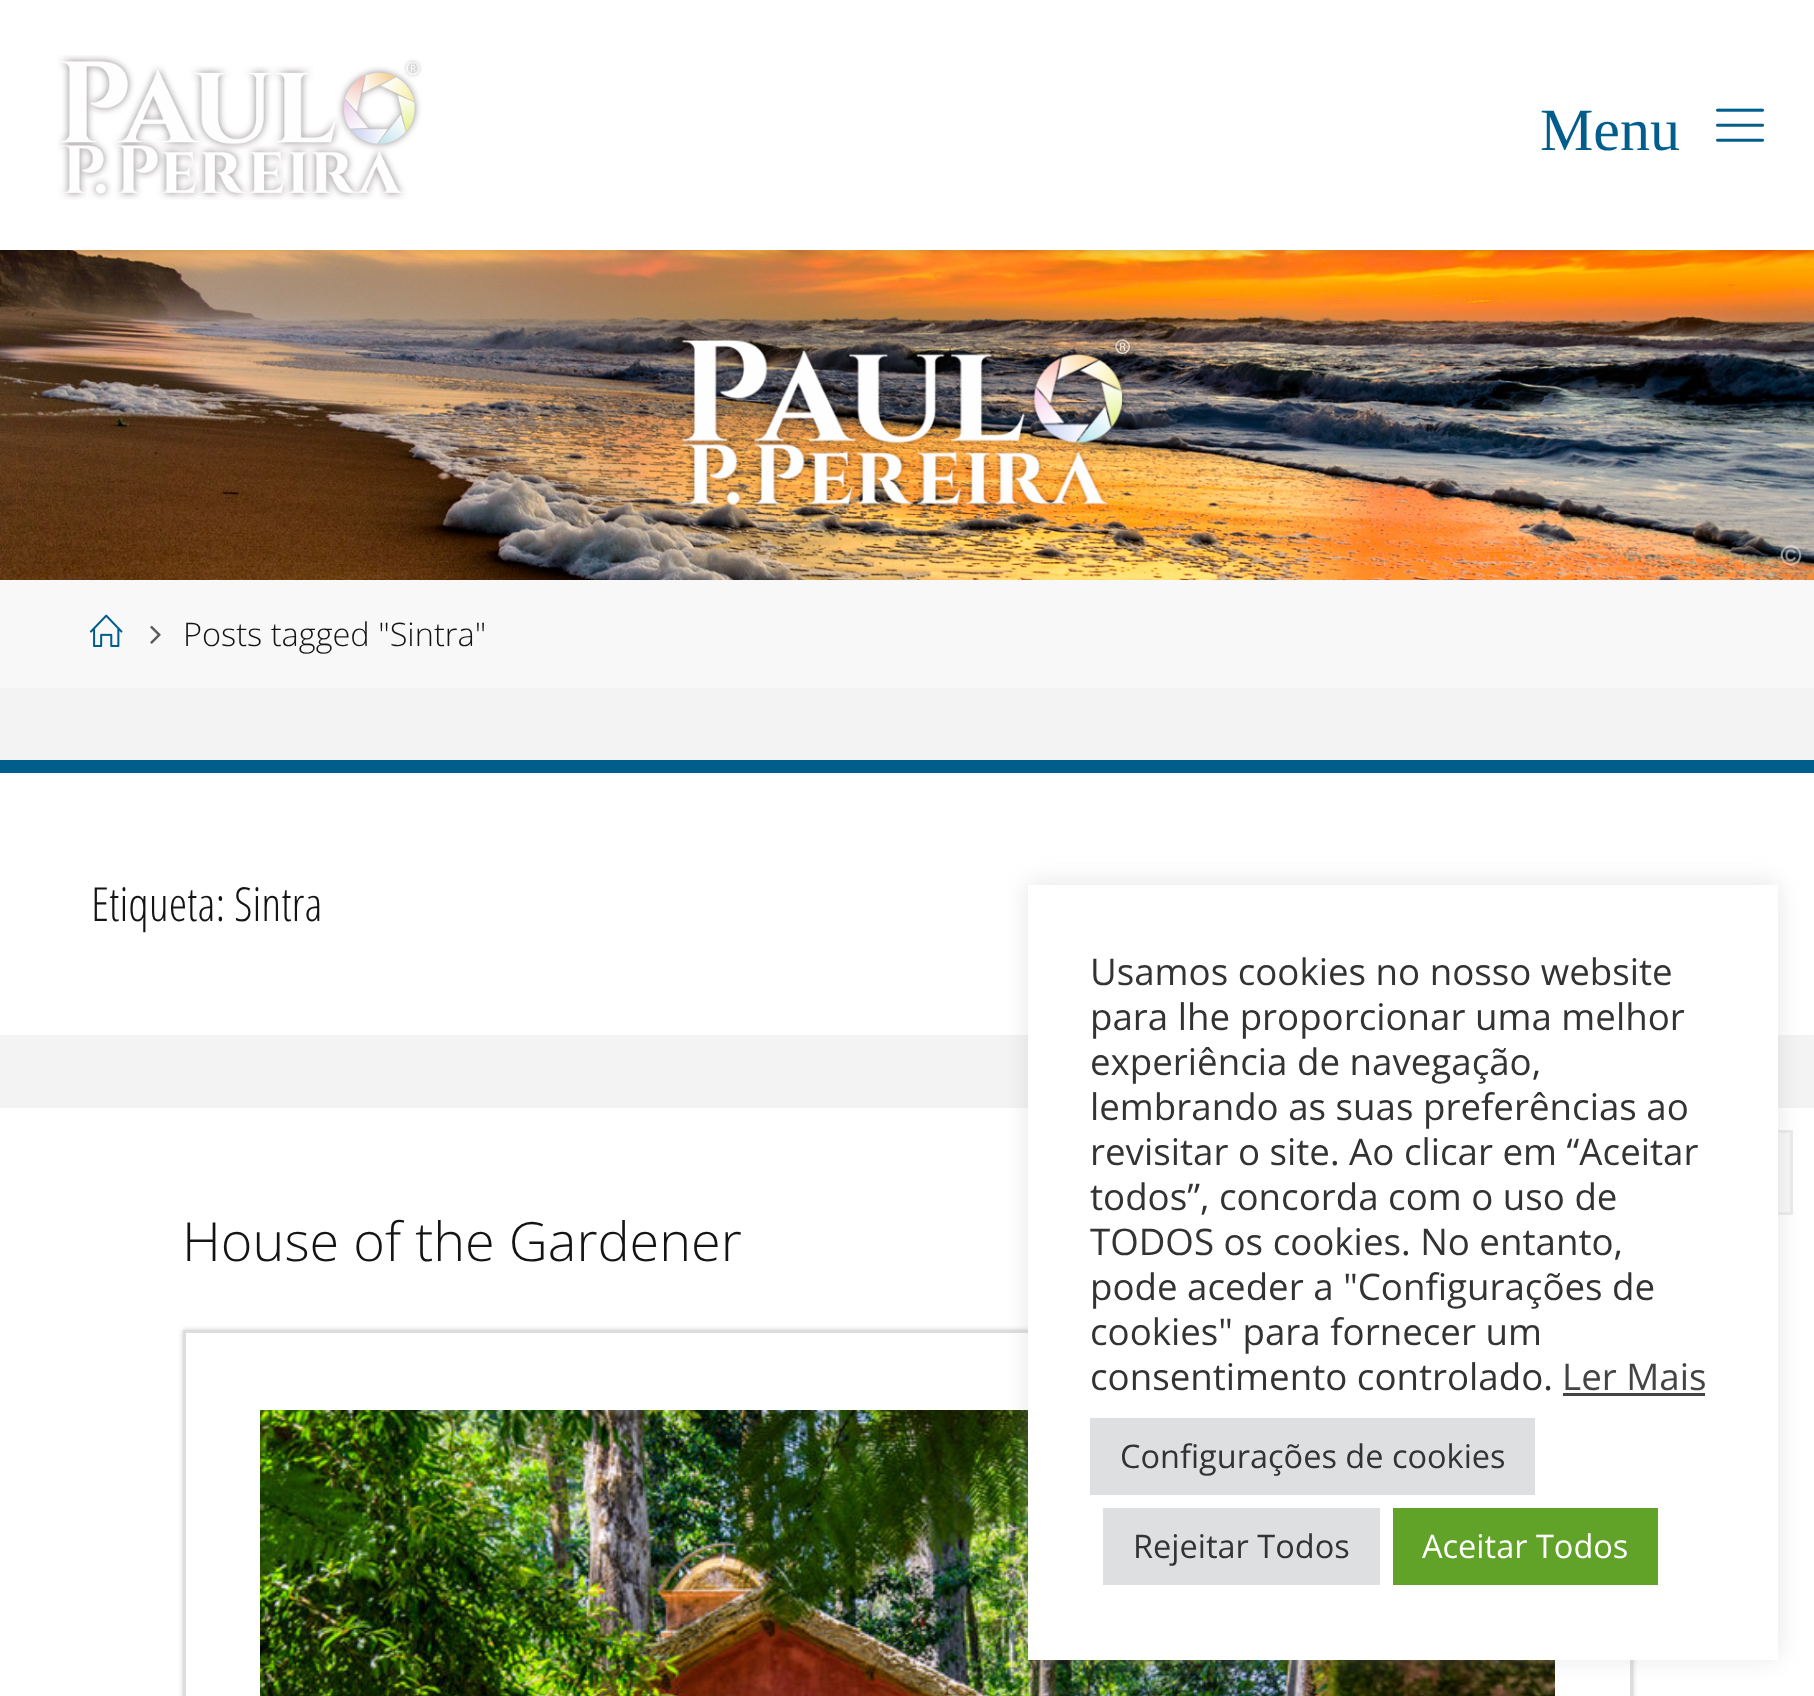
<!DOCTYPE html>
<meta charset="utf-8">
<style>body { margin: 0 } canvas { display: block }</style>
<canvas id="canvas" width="1814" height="1696"></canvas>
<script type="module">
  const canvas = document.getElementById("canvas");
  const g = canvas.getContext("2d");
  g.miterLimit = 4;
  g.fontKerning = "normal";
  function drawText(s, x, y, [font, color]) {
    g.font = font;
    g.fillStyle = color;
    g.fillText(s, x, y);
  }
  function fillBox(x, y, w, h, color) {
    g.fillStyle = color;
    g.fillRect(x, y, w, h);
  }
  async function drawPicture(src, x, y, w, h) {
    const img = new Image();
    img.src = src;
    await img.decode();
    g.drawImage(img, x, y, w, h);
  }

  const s1 = ["60px Liberation Serif", "#005D8C"];
  const s2 = ["300 32.5px Open Sans", "#141414"];
  const s3 = ["300 47px Open Sans Condensed", "#141414"];
  const s4 = ["300 54px Open Sans", "#141414"];
  const s5 = ["36.7px Open Sans", "#333333"];
  const s6 = ["36.7px Open Sans", "#444444"];
  const s7 = ["32.5px Open Sans", "#333333"];
  const s8 = ["32.5px Open Sans", "#FFFFFF"];

  fillBox(0, 0, 1814, 1696, "#F3F3F3");
  await drawPicture("pic3.png", 0, 250, 1814, 330);
  g.fillStyle = "rgba(0, 0, 0, 0.2)";
  g.filter = "blur(4px)";
  g.beginPath();
  g.rect(0, 0, 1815, 250);
  g.fill();
  g.filter = "none";
  fillBox(0, 0, 1814, 250, "#FFFFFF");
  await drawPicture("pic1.png", 58, 55, 364, 145);
  drawText("Menu", 1540, 150, s1);
  await drawPicture("pic2.png", 1716, 108, 49, 34);
  fillBox(0, 580, 1814, 108, "#F8F8F8");
  await drawPicture("pic4.png", 90, 614, 33, 33);
  await drawPicture("pic5.png", 150, 625, 11, 19);
  drawText("Posts tagged \"Sintra\"", 183, 646, s2);
  fillBox(0, 773, 1814, 262, "#FFFFFF");
  fillBox(0, 760, 1814, 13, "#005D8C");
  drawText("Etiqueta: Sintra", 91, 921, s3);
  fillBox(0, 1108, 1814, 588, "#FFFFFF");
  fillBox(1778, 1133, 12, 79, "#F7F7F7");
  g.strokeStyle = "#EBEBEB";
  g.lineWidth = 3;
  g.strokeRect(1709.5, 1131.5, 82, 82);
  drawText("House of the Gardener", 182, 1261, s4);
  g.save();
  g.beginPath();
  g.moveTo(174, 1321);
  g.lineTo(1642, 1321);
  g.lineTo(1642, 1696);
  g.lineTo(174, 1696);
  g.closePath();
  g.moveTo(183, 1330);
  g.lineTo(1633, 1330);
  g.lineTo(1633, 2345);
  g.lineTo(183, 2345);
  g.closePath();
  g.clip("evenodd");
  g.fillStyle = "#CCCCCC";
  g.filter = "blur(2.5px)";
  g.beginPath();
  g.rect(183, 1330, 1450, 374);
  g.fill();
  g.filter = "none";
  g.restore();
  g.strokeStyle = "#DDDDDD";
  g.strokeRect(184.5, 1331.5, 1447, 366);
  await drawPicture("pic6.png", 260, 1410, 1295, 286);
  g.fillStyle = "rgba(172, 171, 171, 0.3)";
  g.filter = "blur(12.5px)";
  g.beginPath();
  g.rect(1028, 883, 750, 775);
  g.fill();
  g.filter = "none";
  fillBox(1028, 885, 750, 775, "#FFFFFF");
  drawText("Usamos cookies no nosso website", 1090, 985, s5);
  drawText("para lhe proporcionar uma melhor", 1090, 1030, s5);
  drawText("experiência de navegação,", 1090, 1075, s5);
  drawText("lembrando as suas preferências ao", 1090, 1120, s5);
  drawText("revisitar o site. Ao clicar em “Aceitar", 1090, 1165, s5);
  drawText("todos”, concorda com o uso de", 1090, 1210, s5);
  drawText("TODOS os cookies. No entanto,", 1090, 1255, s5);
  drawText("pode aceder a \"Configurações de", 1090, 1300, s5);
  drawText("cookies\" para fornecer um", 1090, 1345, s5);
  drawText("consentimento controlado.", 1090, 1390, s5);
  drawText("Ler Mais", 1562, 1390, s6);
  fillBox(1563, 1393, 142, 3, "#444444");
  fillBox(1090, 1418, 445, 77, "#DEDFE0");
  drawText("Configurações de cookies", 1120, 1468, s7);
  fillBox(1103, 1508, 277, 77, "#DEDFE0");
  drawText("Rejeitar Todos", 1133, 1558, s7);
  fillBox(1393, 1508, 265, 77, "#61A229");
  drawText("Aceitar Todos", 1422, 1558, s8);
</script>
